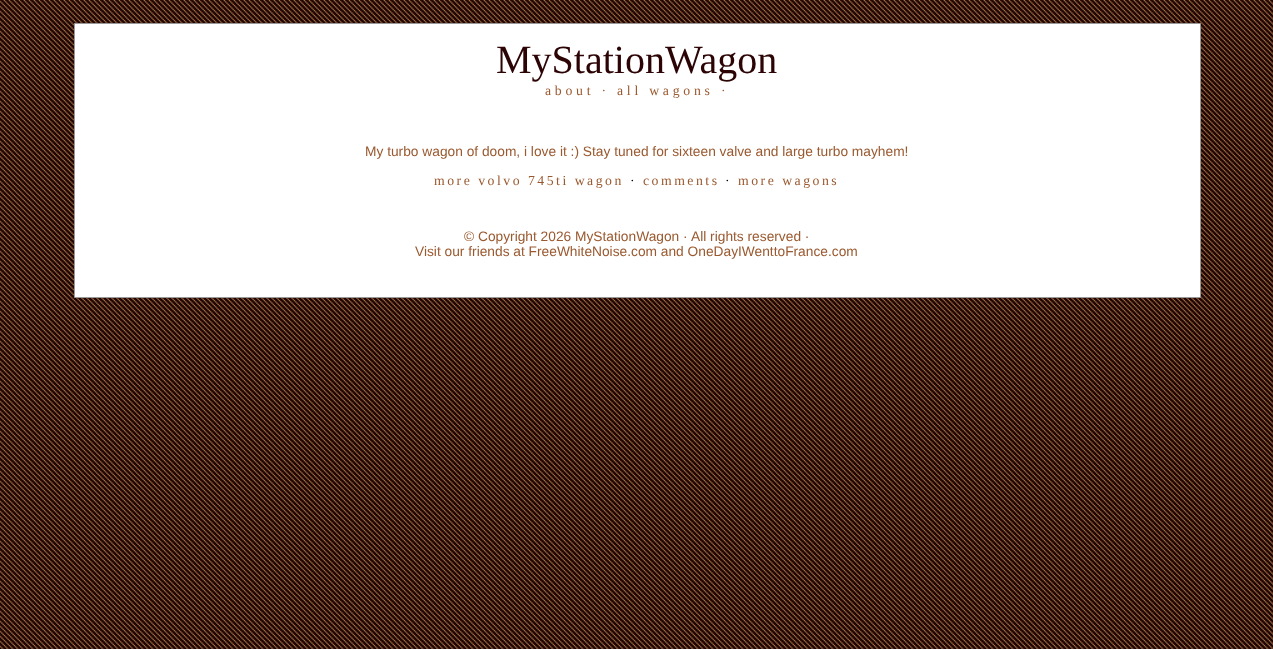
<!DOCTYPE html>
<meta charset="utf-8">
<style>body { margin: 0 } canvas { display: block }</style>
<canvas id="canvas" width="1273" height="649"></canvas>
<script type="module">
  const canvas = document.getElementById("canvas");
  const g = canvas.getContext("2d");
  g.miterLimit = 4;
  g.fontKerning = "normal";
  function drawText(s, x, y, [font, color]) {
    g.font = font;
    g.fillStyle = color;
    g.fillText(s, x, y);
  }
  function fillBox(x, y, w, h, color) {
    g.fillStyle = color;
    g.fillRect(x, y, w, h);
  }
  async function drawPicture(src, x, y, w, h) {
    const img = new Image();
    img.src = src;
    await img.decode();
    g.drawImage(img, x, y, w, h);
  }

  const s1 = ["40px Liberation Serif", "#2C0405"];
  const s2 = ["13.75px Liberation Serif", "#9A592F"];
  const s3 = ["13.75px Liberation Sans", "#9A592F"];
  const s4 = ["13.75px Liberation Serif", "#000000"];

  fillBox(0, 0, 1273, 649, "#FFFFFF");
  await drawPicture("pic1.png", 0, 0, 1273, 649);
  g.beginPath();
  g.rect(74.5, 23.5, 1126, 274);
  g.fill();
  g.strokeStyle = "#999999";
  g.stroke();
  drawText("MyStationWagon", 496, 73, s1);
  g.letterSpacing = "3.75px";
  drawText("about · all wagons ·", 545, 95, s2);
  g.letterSpacing = "0px";
  drawText("My turbo wagon of doom, i love it :) Stay tuned for sixteen valve and large turbo mayhem!", 365, 156, s3);
  g.letterSpacing = "2.5px";
  drawText("more volvo 745ti wagon", 434, 185, s2);
  drawText("·", 630, 185, s4);
  drawText("comments", 643, 185, s2);
  drawText("·", 725, 185, s4);
  drawText("more wagons", 738, 185, s2);
  g.letterSpacing = "0px";
  drawText("© Copyright 2026 MyStationWagon ·", 464, 241, s3);
  drawText("All rights reserved ·", 691, 241, s3);
  drawText("Visit our friends at FreeWhiteNoise.com and OneDayIWenttoFrance.com", 415, 256, s3);
</script>
